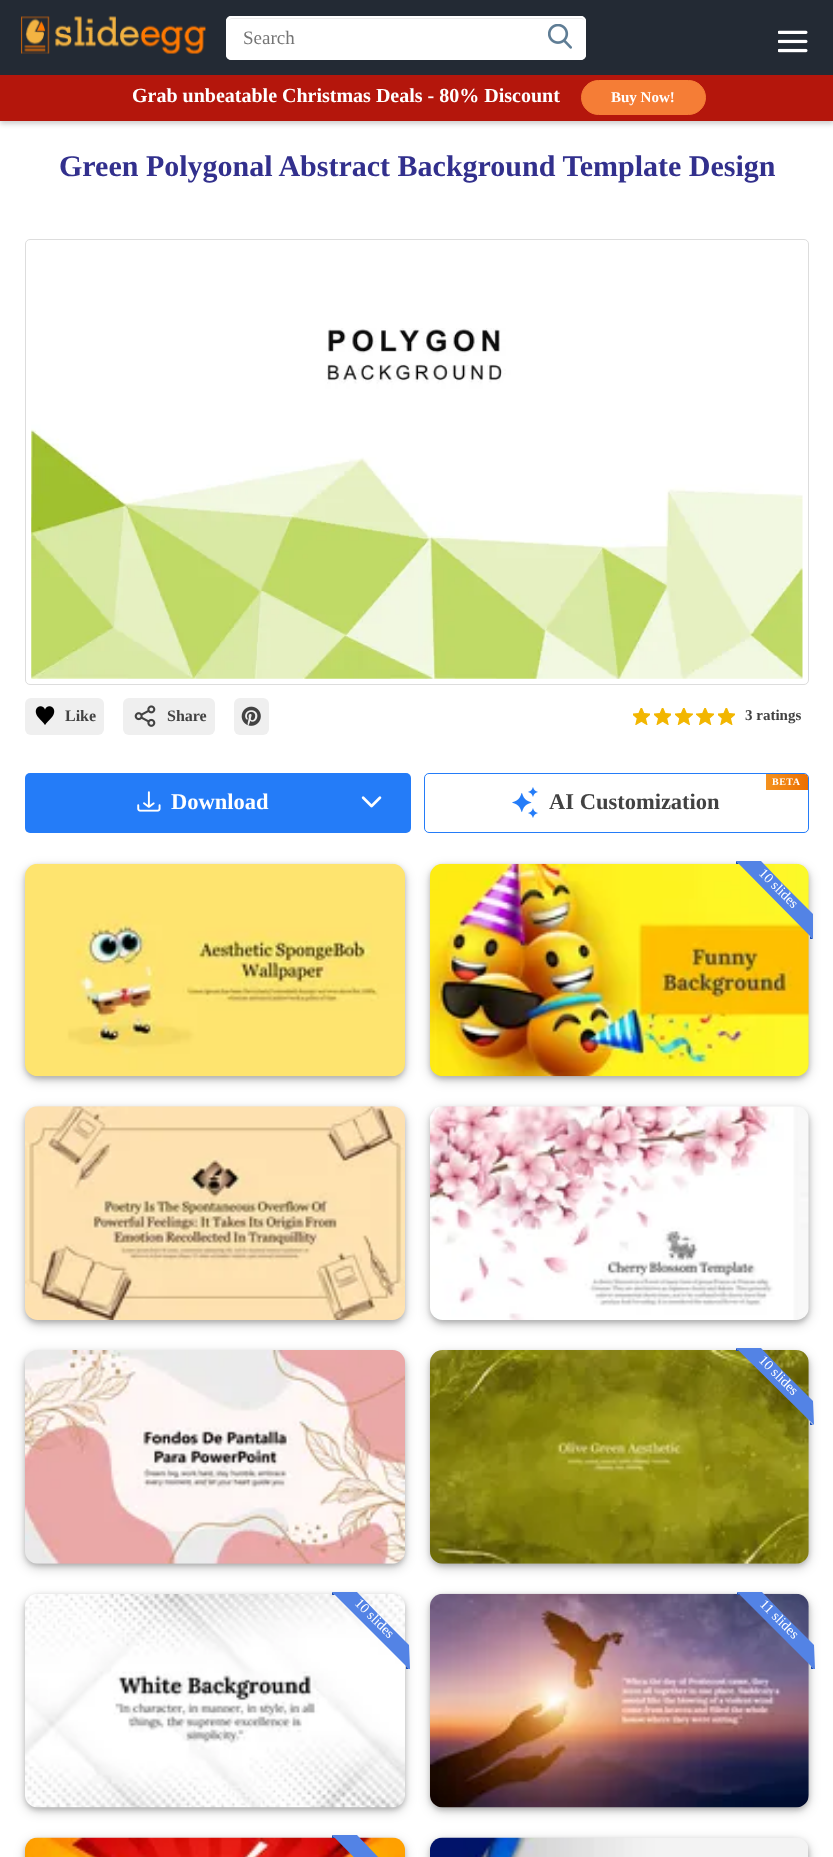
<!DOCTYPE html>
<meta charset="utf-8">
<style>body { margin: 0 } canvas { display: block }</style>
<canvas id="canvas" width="833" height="1857"></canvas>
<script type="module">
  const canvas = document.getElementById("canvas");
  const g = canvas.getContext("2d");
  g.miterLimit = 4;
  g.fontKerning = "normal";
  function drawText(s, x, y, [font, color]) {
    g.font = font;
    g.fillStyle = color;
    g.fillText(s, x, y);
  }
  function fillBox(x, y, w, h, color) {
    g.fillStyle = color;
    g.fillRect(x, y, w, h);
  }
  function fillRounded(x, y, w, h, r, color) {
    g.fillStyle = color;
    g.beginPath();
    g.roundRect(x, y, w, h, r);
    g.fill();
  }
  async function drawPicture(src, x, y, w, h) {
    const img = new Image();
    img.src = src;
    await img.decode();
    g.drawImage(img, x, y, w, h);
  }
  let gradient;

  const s1 = ["19px Liberation Serif", "#757575"];
  const s2 = ["bold 20px Liberation Serif", "#FFFFFF"];
  const s3 = ["bold 15px Liberation Serif", "#FFFFFF"];
  const s4 = ["bold 30px Liberation Serif", "#32308D"];
  const s5 = ["bold 16px Liberation Serif", "#424242"];
  const s6 = ["bold 15px Liberation Serif", "#424242"];
  const s7 = ["bold 22.5px Liberation Serif", "#FFFFFF"];
  const s8 = ["bold 10px Liberation Serif", "#FFFFFF"];
  const s9 = ["bold 22.5px Liberation Serif", "#424242"];

  fillBox(0, 0, 833, 1857, "#FFFFFF");
  g.fillStyle = "rgba(0, 0, 0, 0.19)";
  g.filter = "blur(2.5px)";
  g.beginPath();
  g.rect(0, 76, 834, 48);
  g.fill();
  g.filter = "none";
  fillBox(0, 0, 833, 75, "#232A34");
  await drawPicture("pic1.png", 21, 16, 185, 38);
  fillRounded(226, 16, 360, 44, 5, "#FFFFFF");
  g.fillStyle = "#EBEBEB";
  g.beginPath();
  g.moveTo(231, 19);
  g.lineTo(581, 19);
  g.bezierCurveTo(583, 19, 585, 20, 585, 22);
  g.bezierCurveTo(585, 20, 583, 18, 581, 18);
  g.lineTo(232, 18);
  g.bezierCurveTo(231, 18, 229, 19, 229, 20);
  g.closePath();
  g.fill();
  g.beginPath();
  g.roundRect(226.5, 16.5, 359, 43, 4.5);
  g.strokeStyle = "#FFFFFF";
  g.stroke();
  drawText("Search", 243, 44, s1);
  await drawPicture("pic2.png", 548, 24, 24, 25);
  await drawPicture("pic3.png", 778, 30, 30, 23);
  fillBox(0, 75, 833, 46, "#B4160C");
  drawText("Grab unbeatable Christmas Deals - 80% Discount", 132, 102, s2);
  g.fillStyle = "#F57D36";
  g.beginPath();
  g.roundRect(581.5, 80.5, 124, 34, 17);
  g.fill();
  g.strokeStyle = "#F57D36";
  g.stroke();
  drawText("Buy Now!", 611, 102, s3);
  drawText("Green Polygonal Abstract Background Template Design", 59, 176, s4);
  g.beginPath();
  g.roundRect(25.5, 239.5, 783, 445, 4.5);
  g.strokeStyle = "#DDDDDD";
  g.stroke();
  await drawPicture("pic4.png", 31, 328, 772, 351);
  fillRounded(25, 698, 79, 37, 6, "#EFEFEF");
  await drawPicture("pic5.png", 35, 706, 20, 19);
  drawText("Like", 65, 721, s5);
  fillRounded(123, 698, 92, 37, 6, "#EFEFEF");
  await drawPicture("pic6.png", 134, 705, 22, 22);
  drawText("Share", 167, 721, s5);
  fillRounded(234, 698, 35, 37, 6, "#EFEFEF");
  await drawPicture("pic7.png", 241, 706, 20, 20);
  await drawPicture("pic8.png", 633, 708, 17, 17);
  await drawPicture("pic9.png", 654, 708, 17, 17);
  await drawPicture("pic10.png", 675, 708, 18, 17);
  await drawPicture("pic11.png", 696, 708, 18, 17);
  await drawPicture("pic8.png", 718, 708, 17, 17);
  drawText("3 ratings", 745, 720, s6);
  fillRounded(25, 773, 386, 60, 5, "#247CF8");
  await drawPicture("pic12.png", 137, 791, 24, 21);
  drawText("Download", 171, 809, s7);
  await drawPicture("pic13.png", 361, 796, 21, 12);
  g.beginPath();
  g.roundRect(424.5, 773.5, 384, 59, 4.5);
  g.strokeStyle = "#247CF8";
  g.stroke();
  gradient = g.createLinearGradient(766, 782, 808, 782);
  gradient.addColorStop(0, "#F4921F");
  gradient.addColorStop(1, "#EC6F00");
  g.fillStyle = gradient;
  g.beginPath();
  g.roundRect(766, 774, 42, 16, [0, 4, 0, 0]);
  g.fill();
  g.letterSpacing = "0.5px";
  drawText("BETA", 772, 785, s8);
  await drawPicture("pic14.png", 512, 787, 26, 31);
  g.letterSpacing = "0px";
  drawText("AI Customization", 549, 809, s9);
  g.fillStyle = "rgba(0, 0, 0, 0.19)";
  g.filter = "blur(6px)";
  g.beginPath();
  g.roundRect(25, 868, 380, 212, 13);
  g.fill();
  g.filter = "none";
  g.filter = "blur(2.5px)";
  g.beginPath();
  g.roundRect(25, 866, 380, 213, 13);
  g.fill();
  g.filter = "none";
  await drawPicture("pic15.png", 25, 863, 380, 214);
  g.filter = "blur(6px)";
  g.beginPath();
  g.roundRect(430, 868, 379, 212, 13);
  g.fill();
  g.filter = "none";
  g.filter = "blur(2.5px)";
  g.beginPath();
  g.roundRect(430, 866, 379, 213, 13);
  g.fill();
  g.filter = "none";
  await drawPicture("pic16.png", 430, 863, 379, 214);
  g.fillStyle = "#5383E5";
  g.beginPath();
  g.moveTo(783, 884);
  g.lineTo(813, 914);
  g.lineTo(813, 939);
  g.lineTo(736, 861);
  g.lineTo(761, 861);
  g.closePath();
  g.fill();
  g.fillStyle = "#1C4EB6";
  g.beginPath();
  g.moveTo(736, 861);
  g.lineTo(739, 864);
  g.lineTo(736, 864);
  g.closePath();
  g.moveTo(810, 936);
  g.lineTo(810, 939);
  g.lineTo(813, 939);
  g.closePath();
  g.fill("evenodd");
  g.font = "14px Liberation Serif";
  g.fillStyle = "#FFFFFF";
  g.save();
  g.translate(758, 874);
  g.rotate(45 * Math.PI / 180);
  g.fillText("10 slides", 0, 0);
  g.restore();
  g.fillStyle = "rgba(0, 0, 0, 0.19)";
  g.filter = "blur(6px)";
  g.beginPath();
  g.roundRect(25, 1110, 380, 214, 13);
  g.fill();
  g.filter = "none";
  g.filter = "blur(2.5px)";
  g.beginPath();
  g.roundRect(25, 1109, 380, 214, 13);
  g.fill();
  g.filter = "none";
  await drawPicture("pic17.png", 25, 1106, 380, 214);
  g.filter = "blur(6px)";
  g.beginPath();
  g.roundRect(430, 1110, 379, 214, 13);
  g.fill();
  g.filter = "none";
  g.filter = "blur(2.5px)";
  g.beginPath();
  g.roundRect(430, 1109, 379, 214, 13);
  g.fill();
  g.filter = "none";
  await drawPicture("pic18.png", 430, 1106, 379, 214);
  g.filter = "blur(6px)";
  g.beginPath();
  g.roundRect(25, 1354, 380, 214, 13);
  g.fill();
  g.filter = "none";
  g.filter = "blur(2.5px)";
  g.beginPath();
  g.roundRect(25, 1353, 380, 213, 13);
  g.fill();
  g.filter = "none";
  await drawPicture("pic19.png", 25, 1350, 380, 214);
  g.filter = "blur(6px)";
  g.beginPath();
  g.roundRect(430, 1354, 379, 214, 13);
  g.fill();
  g.filter = "none";
  g.filter = "blur(2.5px)";
  g.beginPath();
  g.roundRect(430, 1353, 379, 213, 13);
  g.fill();
  g.filter = "none";
  await drawPicture("pic20.png", 430, 1350, 379, 214);
  g.fillStyle = "#5383E5";
  g.beginPath();
  g.moveTo(783, 1371);
  g.lineTo(813, 1401);
  g.lineTo(814, 1425);
  g.lineTo(736, 1348);
  g.lineTo(761, 1348);
  g.closePath();
  g.fill();
  g.fillStyle = "#1C4EB6";
  g.beginPath();
  g.moveTo(736, 1348);
  g.lineTo(739, 1351);
  g.lineTo(736, 1351);
  g.closePath();
  g.moveTo(810, 1422);
  g.lineTo(810, 1425);
  g.lineTo(813, 1425);
  g.closePath();
  g.fill("evenodd");
  g.fillStyle = "#FFFFFF";
  g.save();
  g.translate(758, 1361);
  g.rotate(45 * Math.PI / 180);
  g.fillText("10 slides", 0, 0);
  g.restore();
  g.fillStyle = "rgba(0, 0, 0, 0.19)";
  g.filter = "blur(6px)";
  g.beginPath();
  g.roundRect(25, 1598, 380, 213, 13);
  g.fill();
  g.filter = "none";
  g.filter = "blur(2.5px)";
  g.beginPath();
  g.roundRect(25, 1596, 380, 214, 13);
  g.fill();
  g.filter = "none";
  await drawPicture("pic21.png", 25, 1594, 380, 214);
  g.fillStyle = "#5383E5";
  g.beginPath();
  g.moveTo(379, 1615);
  g.lineTo(409, 1645);
  g.lineTo(410, 1669);
  g.lineTo(409, 1669);
  g.lineTo(332, 1592);
  g.lineTo(357, 1592);
  g.closePath();
  g.fill();
  g.fillStyle = "#1C4EB6";
  g.beginPath();
  g.moveTo(332, 1592);
  g.lineTo(335, 1595);
  g.lineTo(332, 1595);
  g.closePath();
  g.moveTo(406, 1666);
  g.lineTo(409, 1669);
  g.lineTo(406, 1669);
  g.closePath();
  g.fill();
  g.fillStyle = "#FFFFFF";
  g.save();
  g.translate(354, 1604);
  g.rotate(45 * Math.PI / 180);
  g.fillText("10 slides", 0, 0);
  g.restore();
  g.fillStyle = "rgba(0, 0, 0, 0.19)";
  g.filter = "blur(6px)";
  g.beginPath();
  g.roundRect(430, 1598, 379, 213, 13);
  g.fill();
  g.filter = "none";
  g.filter = "blur(2.5px)";
  g.beginPath();
  g.roundRect(430, 1596, 379, 214, 13);
  g.fill();
  g.filter = "none";
  await drawPicture("pic22.png", 430, 1593, 379, 215);
  g.fillStyle = "#5383E5";
  g.beginPath();
  g.moveTo(784, 1615);
  g.lineTo(814, 1645);
  g.lineTo(815, 1669);
  g.lineTo(814, 1669);
  g.lineTo(737, 1592);
  g.lineTo(762, 1592);
  g.closePath();
  g.fill();
  g.fillStyle = "#1C4EB6";
  g.beginPath();
  g.moveTo(737, 1592);
  g.lineTo(740, 1595);
  g.lineTo(737, 1595);
  g.closePath();
  g.moveTo(811, 1666);
  g.lineTo(814, 1669);
  g.lineTo(811, 1669);
  g.closePath();
  g.fill();
  g.fillStyle = "#FFFFFF";
  g.save();
  g.translate(759, 1605);
  g.rotate(45 * Math.PI / 180);
  g.fillText("11 slides", 0, 0);
  g.restore();
  g.fillStyle = "rgba(0, 0, 0, 0.19)";
  g.filter = "blur(6px)";
  g.beginPath();
  g.roundRect(25, 1841, 380, 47, 13);
  g.fill();
  g.filter = "none";
  g.filter = "blur(2.5px)";
  g.beginPath();
  g.roundRect(25, 1840, 380, 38, 13);
  g.fill();
  g.filter = "none";
  await drawPicture("pic23.png", 25, 1837, 380, 20);
  g.fillStyle = "#5383E5";
  g.beginPath();
  g.moveTo(379, 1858);
  g.lineTo(409, 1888);
  g.lineTo(409, 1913);
  g.lineTo(332, 1835);
  g.lineTo(357, 1835);
  g.closePath();
  g.fill();
  g.fillStyle = "#1C4EB6";
  g.beginPath();
  g.moveTo(332, 1835);
  g.lineTo(335, 1838);
  g.lineTo(332, 1838);
  g.closePath();
  g.moveTo(406, 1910);
  g.lineTo(406, 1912);
  g.lineTo(409, 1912);
  g.closePath();
  g.fill("evenodd");
  g.fillStyle = "rgba(0, 0, 0, 0.19)";
  g.filter = "blur(6px)";
  g.beginPath();
  g.roundRect(430, 1841, 379, 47, 13);
  g.fill();
  g.filter = "none";
  g.filter = "blur(2.5px)";
  g.beginPath();
  g.roundRect(430, 1840, 379, 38, 13);
  g.fill();
  g.filter = "none";
  await drawPicture("pic24.png", 430, 1837, 378, 20);
</script>
